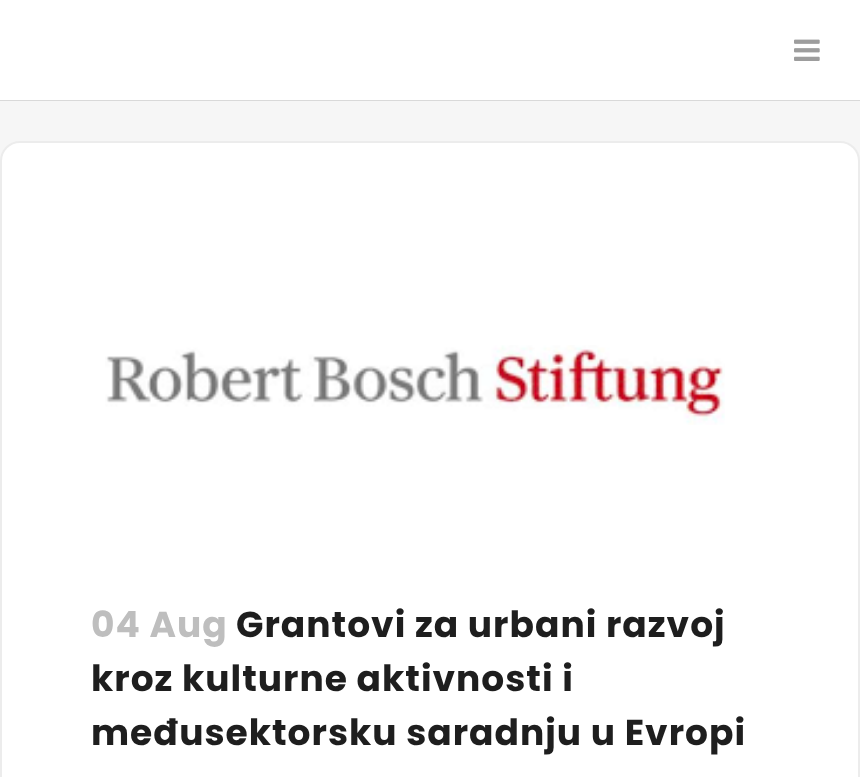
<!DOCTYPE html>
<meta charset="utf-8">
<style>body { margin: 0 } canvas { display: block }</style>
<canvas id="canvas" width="860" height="777"></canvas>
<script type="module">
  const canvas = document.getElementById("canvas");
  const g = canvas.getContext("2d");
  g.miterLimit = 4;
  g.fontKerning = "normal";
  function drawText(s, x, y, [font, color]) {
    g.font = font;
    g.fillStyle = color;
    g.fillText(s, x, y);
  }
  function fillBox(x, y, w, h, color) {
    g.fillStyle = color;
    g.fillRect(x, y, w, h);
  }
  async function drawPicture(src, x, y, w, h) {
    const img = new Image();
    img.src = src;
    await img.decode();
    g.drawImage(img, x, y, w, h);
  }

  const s1 = ["bold 36px Poppins", "#BEBEBE"];
  const s2 = ["bold 36px Poppins", "#1E1E1E"];

  fillBox(0, 0, 860, 777, "#F6F6F6");
  fillBox(0, 0, 860, 100, "#FFFFFF");
  fillBox(0, 100, 860, 1, "#D9D9D9");
  await drawPicture("pic1.png", 794, 39, 26, 22);
  g.fillStyle = "#FFFFFF";
  g.beginPath();
  g.roundRect(1, 142, 858, 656, 19);
  g.fill();
  g.strokeStyle = "#ECECEC";
  g.lineWidth = 2;
  g.stroke();
  await drawPicture("pic2.png", 105, 345, 620, 80);
  g.letterSpacing = "1px";
  drawText("04 Aug", 91, 637, s1);
  drawText("Grantovi za urbani razvoj", 236, 637, s2);
  drawText("kroz kulturne aktivnosti i", 91, 691, s2);
  drawText("međusektorsku saradnju u Evropi", 91, 745, s2);
</script>
